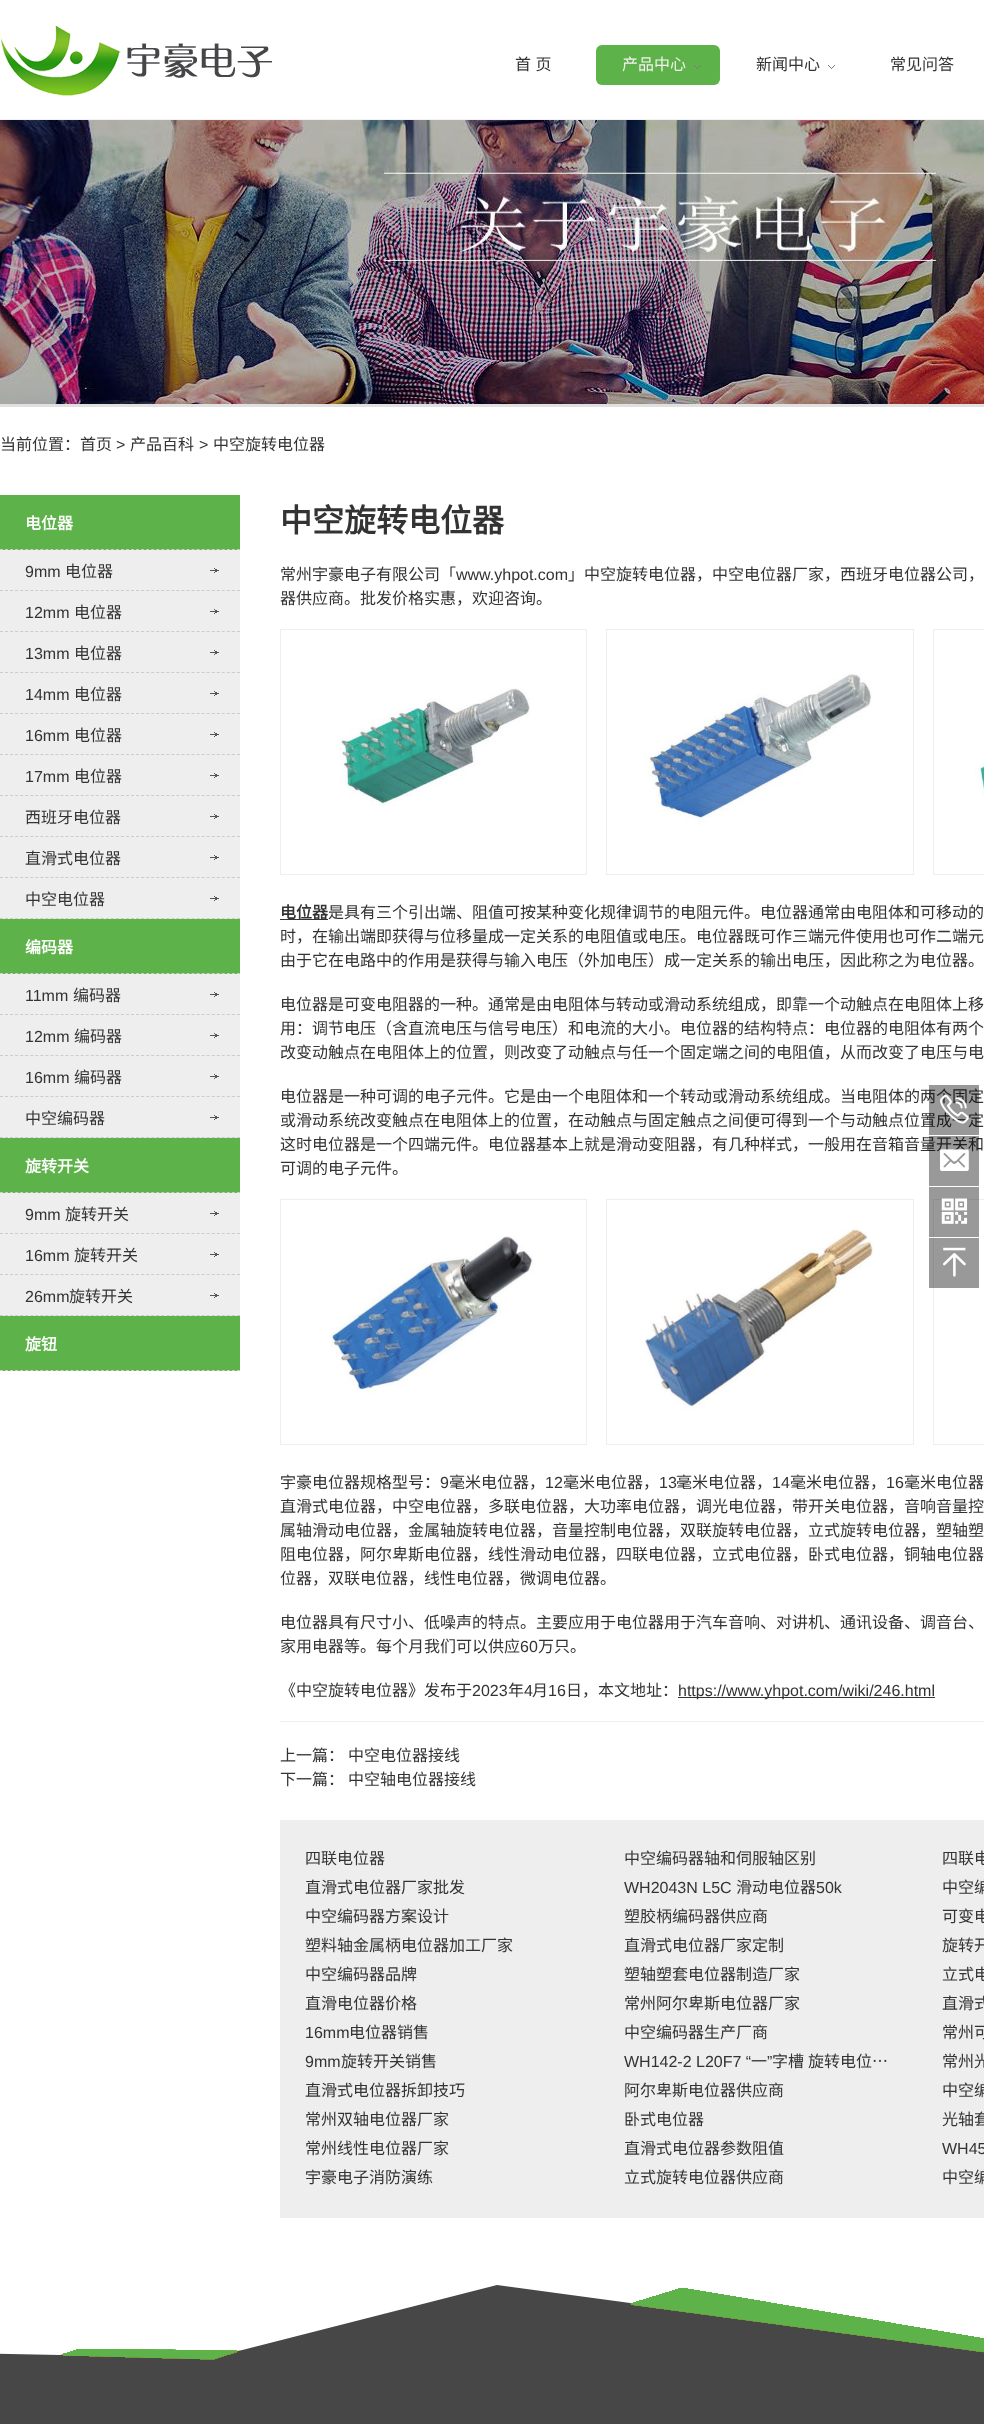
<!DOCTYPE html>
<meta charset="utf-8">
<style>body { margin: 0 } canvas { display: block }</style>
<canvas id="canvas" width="984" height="2424"></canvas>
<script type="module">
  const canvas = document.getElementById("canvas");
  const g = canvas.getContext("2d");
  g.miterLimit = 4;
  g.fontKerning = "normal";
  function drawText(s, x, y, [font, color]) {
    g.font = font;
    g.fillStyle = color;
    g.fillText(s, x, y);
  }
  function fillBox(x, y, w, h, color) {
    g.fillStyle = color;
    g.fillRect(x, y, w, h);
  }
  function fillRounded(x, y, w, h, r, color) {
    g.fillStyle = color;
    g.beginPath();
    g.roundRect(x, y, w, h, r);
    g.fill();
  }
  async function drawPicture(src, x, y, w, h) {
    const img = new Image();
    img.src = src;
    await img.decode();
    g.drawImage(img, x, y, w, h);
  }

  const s1 = ["16px Noto Sans CJK SC", "#333333"];
  const s2 = ["16px Noto Sans CJK SC", "#F4F0F0"];
  const s3 = ["16px Liberation Sans", "#333333"];
  const s4 = ["bold 16px Noto Sans CJK SC", "#FFFFFF"];
  const s5 = ["bold 32px Noto Sans CJK SC", "#333333"];
  const s6 = ["bold 16px Noto Sans CJK SC", "#333333"];

  fillBox(0, 0, 984, 2424, "#FFFFFF");
  fillBox(0, 119, 984, 1, "#F2F2F2");
  await drawPicture("pic1.png", 1, 26, 271, 70);
  g.wordSpacing = "1px";
  drawText("首 页", 515, 70, s1);
  fillRounded(596, 45, 124, 40, 6, "#5DB249");
  g.wordSpacing = "0px";
  drawText("产品中心", 622, 70, s2);
  await drawPicture("pic2.png", 694, 65, 7, 4);
  drawText("新闻中心", 756, 70, s1);
  await drawPicture("pic3.png", 828, 65, 7, 4);
  drawText("常见问答", 890, 70, s1);
  await drawPicture("pic4.png", 0, 120, 984, 284);
  fillBox(0, 404, 984, 3, "#E1E0E0");
  drawText("当前位置：首页", 0, 450, s1);
  drawText(">", 116, 450, s3);
  drawText("产品百科", 130, 450, s1);
  drawText(">", 199, 450, s3);
  drawText("中空旋转电位器", 213, 450, s1);
  fillBox(0, 495, 240, 55, "#5DB249");
  g.beginPath();
  g.moveTo(0, 549.5);
  g.lineTo(240, 549.5);
  g.strokeStyle = "#CCCCCC";
  g.setLineDash([3, 2.04]);
  g.stroke();
  drawText("电位器", 25, 529, s4);
  fillBox(0, 550, 240, 369, "#EEEEEE");
  await drawPicture("pic5.png", 210, 568, 9, 5);
  g.beginPath();
  g.moveTo(0, 590.5);
  g.lineTo(240, 590.5);
  g.stroke();
  drawText("9mm", 25, 577, s3);
  drawText("电位器", 65, 577, s1);
  await drawPicture("pic5.png", 210, 609, 9, 5);
  g.beginPath();
  g.moveTo(0, 631.5);
  g.lineTo(240, 631.5);
  g.stroke();
  drawText("12mm", 25, 618, s3);
  drawText("电位器", 74, 618, s1);
  await drawPicture("pic5.png", 210, 650, 9, 5);
  g.beginPath();
  g.moveTo(0, 672.5);
  g.lineTo(240, 672.5);
  g.stroke();
  drawText("13mm", 25, 659, s3);
  drawText("电位器", 74, 659, s1);
  await drawPicture("pic5.png", 210, 691, 9, 5);
  g.beginPath();
  g.moveTo(0, 713.5);
  g.lineTo(240, 713.5);
  g.stroke();
  drawText("14mm", 25, 700, s3);
  drawText("电位器", 74, 700, s1);
  await drawPicture("pic5.png", 210, 732, 9, 5);
  g.beginPath();
  g.moveTo(0, 754.5);
  g.lineTo(240, 754.5);
  g.stroke();
  drawText("16mm", 25, 741, s3);
  drawText("电位器", 74, 741, s1);
  await drawPicture("pic5.png", 210, 773, 9, 5);
  g.beginPath();
  g.moveTo(0, 795.5);
  g.lineTo(240, 795.5);
  g.stroke();
  drawText("17mm", 25, 782, s3);
  drawText("电位器", 74, 782, s1);
  await drawPicture("pic5.png", 210, 814, 9, 5);
  g.beginPath();
  g.moveTo(0, 836.5);
  g.lineTo(240, 836.5);
  g.stroke();
  drawText("西班牙电位器", 25, 823, s1);
  await drawPicture("pic5.png", 210, 855, 9, 5);
  g.beginPath();
  g.moveTo(0, 877.5);
  g.lineTo(240, 877.5);
  g.stroke();
  drawText("直滑式电位器", 25, 864, s1);
  await drawPicture("pic5.png", 210, 896, 9, 5);
  g.beginPath();
  g.moveTo(0, 918.5);
  g.lineTo(240, 918.5);
  g.stroke();
  drawText("中空电位器", 25, 905, s1);
  fillBox(0, 919, 240, 55, "#5DB249");
  g.beginPath();
  g.moveTo(0, 973.5);
  g.lineTo(240, 973.5);
  g.stroke();
  drawText("编码器", 25, 953, s4);
  fillBox(0, 974, 240, 164, "#EEEEEE");
  await drawPicture("pic5.png", 210, 992, 9, 5);
  g.beginPath();
  g.moveTo(0, 1014.5);
  g.lineTo(240, 1014.5);
  g.stroke();
  drawText("11mm", 25, 1001, s3);
  drawText("编码器", 73, 1001, s1);
  await drawPicture("pic5.png", 210, 1033, 9, 5);
  g.beginPath();
  g.moveTo(0, 1055.5);
  g.lineTo(240, 1055.5);
  g.stroke();
  drawText("12mm", 25, 1042, s3);
  drawText("编码器", 74, 1042, s1);
  await drawPicture("pic5.png", 210, 1074, 9, 5);
  g.beginPath();
  g.moveTo(0, 1096.5);
  g.lineTo(240, 1096.5);
  g.stroke();
  drawText("16mm", 25, 1083, s3);
  drawText("编码器", 74, 1083, s1);
  await drawPicture("pic5.png", 210, 1115, 9, 5);
  g.beginPath();
  g.moveTo(0, 1137.5);
  g.lineTo(240, 1137.5);
  g.stroke();
  drawText("中空编码器", 25, 1124, s1);
  fillBox(0, 1138, 240, 55, "#5DB249");
  g.beginPath();
  g.moveTo(0, 1192.5);
  g.lineTo(240, 1192.5);
  g.stroke();
  drawText("旋转开关", 25, 1172, s4);
  fillBox(0, 1193, 240, 123, "#EEEEEE");
  await drawPicture("pic5.png", 210, 1211, 9, 5);
  g.beginPath();
  g.moveTo(0, 1233.5);
  g.lineTo(240, 1233.5);
  g.stroke();
  drawText("9mm", 25, 1220, s3);
  drawText("旋转开关", 65, 1220, s1);
  await drawPicture("pic5.png", 210, 1252, 9, 5);
  g.beginPath();
  g.moveTo(0, 1274.5);
  g.lineTo(240, 1274.5);
  g.stroke();
  drawText("16mm", 25, 1261, s3);
  drawText("旋转开关", 74, 1261, s1);
  await drawPicture("pic5.png", 210, 1293, 9, 5);
  g.beginPath();
  g.moveTo(0, 1315.5);
  g.lineTo(240, 1315.5);
  g.stroke();
  drawText("26mm", 25, 1302, s3);
  drawText("旋转开关", 69, 1302, s1);
  fillBox(0, 1316, 240, 55, "#5DB249");
  g.beginPath();
  g.moveTo(0, 1370.5);
  g.lineTo(240, 1370.5);
  g.stroke();
  drawText("旋钮", 25, 1350, s4);
  drawText("中空旋转电位器", 280, 532, s5);
  drawText("常州宇豪电子有限公司「", 280, 580, s1);
  drawText("www.yhpot.com", 456, 580, s3);
  drawText("」中空旋转电位器，中空电位器厂家，西班牙电位器公司，", 568, 580, s1);
  drawText("器供应商。批发价格实惠，欢迎咨询。", 280, 604, s1);
  g.strokeStyle = "#EEEEEE";
  g.setLineDash([]);
  g.strokeRect(280.5, 629.5, 306, 245);
  await drawPicture("pic6.png", 339, 688, 191, 118);
  g.strokeRect(606.5, 629.5, 307, 245);
  await drawPicture("pic7.png", 646, 674, 226, 150);
  g.strokeRect(933.5, 629.5, 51, 245);
  await drawPicture("pic8.png", 974, 759, 10, 37);
  fillBox(280, 919, 48, 1, "#333333");
  drawText("电位器", 280, 918, s6);
  drawText("是具有三个引出端、阻值可按某种变化规律调节的电阻元件。电位器通常由电阻体和可移动的", 328, 918, s1);
  drawText("时，在输出端即获得与位移量成一定关系的电阻值或电压。电位器既可作三端元件使用也可作二端元", 280, 942, s1);
  drawText("由于它在电路中的作用是获得与输入电压（外加电压）成一定关系的输出电压，因此称之为电位器。", 280, 966, s1);
  drawText("电位器是可变电阻器的一种。通常是由电阻体与转动或滑动系统组成，即靠一个动触点在电阻体上移", 280, 1010, s1);
  drawText("用：调节电压（含直流电压与信号电压）和电流的大小。电位器的结构特点：电位器的电阻体有两个", 280, 1034, s1);
  drawText("改变动触点在电阻体上的位置，则改变了动触点与任一个固定端之间的电阻值，从而改变了电压与电", 280, 1058, s1);
  drawText("电位器是一种可调的电子元件。它是由一个电阻体和一个转动或滑动系统组成。当电阻体的两个固定", 280, 1102, s1);
  drawText("或滑动系统改变触点在电阻体上的位置，在动触点与固定触点之间便可得到一个与动触点位置成一定", 280, 1126, s1);
  drawText("这时电位器是一个四端元件。电位器基本上就是滑动变阻器，有几种样式，一般用在音箱音量开关和", 280, 1150, s1);
  drawText("可调的电子元件。", 280, 1174, s1);
  g.strokeRect(280.5, 1199.5, 306, 245);
  await drawPicture("pic9.png", 330, 1236, 205, 159);
  g.strokeRect(606.5, 1199.5, 307, 245);
  await drawPicture("pic10.png", 644, 1229, 230, 181);
  g.strokeRect(933.5, 1199.5, 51, 245);
  drawText("宇豪电位器规格型号：", 280, 1488, s1);
  drawText("9", 440, 1488, s3);
  drawText("毫米电位器，", 449, 1488, s1);
  drawText("12", 545, 1488, s3);
  drawText("毫米电位器，", 563, 1488, s1);
  drawText("13", 659, 1488, s3);
  drawText("毫米电位器，", 676, 1488, s1);
  drawText("14", 772, 1488, s3);
  drawText("毫米电位器，", 790, 1488, s1);
  drawText("16", 886, 1488, s3);
  drawText("毫米电位器", 904, 1488, s1);
  drawText("直滑式电位器，中空电位器，多联电位器，大功率电位器，调光电位器，带开关电位器，音响音量控", 280, 1512, s1);
  drawText("属轴滑动电位器，金属轴旋转电位器，音量控制电位器，双联旋转电位器，立式旋转电位器，塑轴塑", 280, 1536, s1);
  drawText("阻电位器，阿尔卑斯电位器，线性滑动电位器，四联电位器，立式电位器，卧式电位器，铜轴电位器", 280, 1560, s1);
  drawText("位器，双联电位器，线性电位器，微调电位器。", 280, 1584, s1);
  drawText("电位器具有尺寸小、低噪声的特点。主要应用于电位器用于汽车音响、对讲机、通讯设备、调音台、", 280, 1628, s1);
  drawText("家用电器等。每个月我们可以供应", 280, 1652, s1);
  drawText("60", 520, 1652, s3);
  drawText("万只。", 538, 1652, s1);
  drawText("《中空旋转电位器》发布于", 280, 1696, s1);
  drawText("2023", 472, 1696, s3);
  drawText("年", 508, 1696, s1);
  drawText("4", 524, 1696, s3);
  drawText("月", 532, 1696, s1);
  drawText("16", 548, 1696, s3);
  drawText("日，本文地址：", 566, 1696, s1);
  fillBox(678, 1697, 257, 1, "#333333");
  drawText("https://www.yhpot.com/wiki/246.html", 678, 1696, s3);
  fillBox(280, 1721, 704, 1, "#EEEEEE");
  drawText("上一篇：", 280, 1761, s1);
  drawText("中空电位器接线", 348, 1761, s1);
  drawText("下一篇：", 280, 1785, s1);
  drawText("中空轴电位器接线", 348, 1785, s1);
  fillBox(280, 1820, 704, 398, "#EEEEEE");
  drawText("四联电位器", 305, 1864, s1);
  drawText("中空编码器轴和伺服轴区别", 624, 1864, s1);
  drawText("四联电", 942, 1864, s1);
  drawText("直滑式电位器厂家批发", 305, 1893, s1);
  drawText("WH2043N L5C", 624, 1893, s3);
  drawText("滑动电位器", 736, 1893, s1);
  drawText("50k", 816, 1893, s3);
  drawText("中空编", 942, 1893, s1);
  drawText("中空编码器方案设计", 305, 1922, s1);
  drawText("塑胶柄编码器供应商", 624, 1922, s1);
  drawText("可变电", 942, 1922, s1);
  drawText("塑料轴金属柄电位器加工厂家", 305, 1951, s1);
  drawText("直滑式电位器厂家定制", 624, 1951, s1);
  drawText("旋转开", 942, 1951, s1);
  drawText("中空编码器品牌", 305, 1980, s1);
  drawText("塑轴塑套电位器制造厂家", 624, 1980, s1);
  drawText("立式电", 942, 1980, s1);
  drawText("直滑电位器价格", 305, 2009, s1);
  drawText("常州阿尔卑斯电位器厂家", 624, 2009, s1);
  drawText("直滑式", 942, 2009, s1);
  drawText("16mm", 305, 2038, s3);
  drawText("电位器销售", 349, 2038, s1);
  drawText("中空编码器生产厂商", 624, 2038, s1);
  drawText("常州可", 942, 2038, s1);
  drawText("9mm", 305, 2067, s3);
  drawText("旋转开关销售", 341, 2067, s1);
  drawText("WH142-2 L20F7 “", 624, 2067, s3);
  drawText("”", 767, 2067, s3);
  drawText("字槽", 772, 2067, s1);
  drawText("旋转电位…", 808, 2067, s1);
  drawText("一", 751, 2067, s1);
  drawText("常州光", 942, 2067, s1);
  drawText("直滑式电位器拆卸技巧", 305, 2096, s1);
  drawText("阿尔卑斯电位器供应商", 624, 2096, s1);
  drawText("中空编", 942, 2096, s1);
  drawText("常州双轴电位器厂家", 305, 2125, s1);
  drawText("卧式电位器", 624, 2125, s1);
  drawText("光轴套", 942, 2125, s1);
  drawText("常州线性电位器厂家", 305, 2154, s1);
  drawText("直滑式电位器参数阻值", 624, 2154, s1);
  drawText("WH45", 942, 2154, s3);
  drawText("宇豪电子消防演练", 305, 2183, s1);
  drawText("立式旋转电位器供应商", 624, 2183, s1);
  drawText("中空编", 942, 2183, s1);
  await drawPicture("pic11.png", 0, 2285, 984, 83);
  fillBox(0, 2368, 984, 56, "#474747");
  fillBox(929, 1085, 50, 50, "rgba(0, 0, 0, 0.4)");
  await drawPicture("pic12.png", 940, 1094, 29, 30);
  fillBox(929, 1136, 50, 50, "rgba(0, 0, 0, 0.4)");
  await drawPicture("pic13.png", 940, 1149, 29, 22);
  fillBox(929, 1187, 50, 50, "rgba(0, 0, 0, 0.4)");
  await drawPicture("pic14.png", 941, 1198, 27, 26);
  fillBox(929, 1238, 50, 50, "rgba(0, 0, 0, 0.4)");
  await drawPicture("pic15.png", 943, 1247, 23, 30);
</script>
